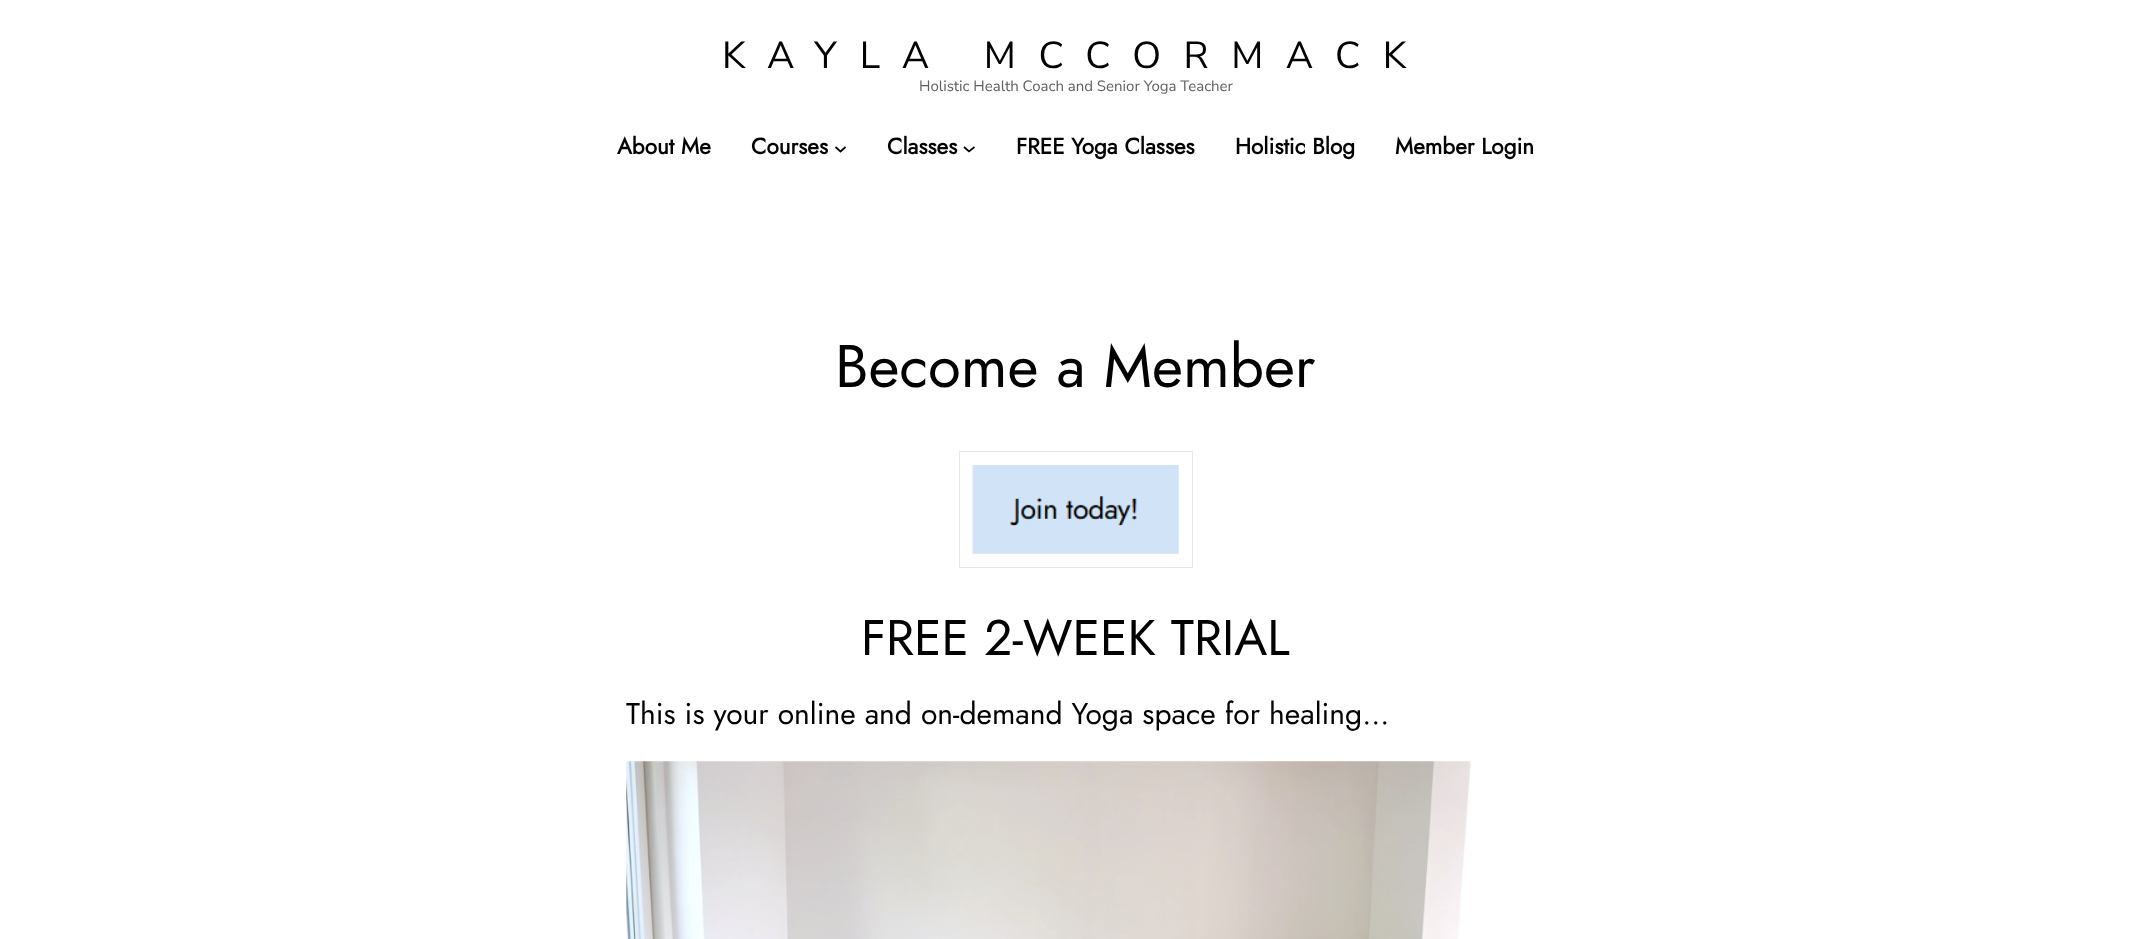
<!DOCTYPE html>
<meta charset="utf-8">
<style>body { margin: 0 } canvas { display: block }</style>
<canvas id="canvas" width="2151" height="939"></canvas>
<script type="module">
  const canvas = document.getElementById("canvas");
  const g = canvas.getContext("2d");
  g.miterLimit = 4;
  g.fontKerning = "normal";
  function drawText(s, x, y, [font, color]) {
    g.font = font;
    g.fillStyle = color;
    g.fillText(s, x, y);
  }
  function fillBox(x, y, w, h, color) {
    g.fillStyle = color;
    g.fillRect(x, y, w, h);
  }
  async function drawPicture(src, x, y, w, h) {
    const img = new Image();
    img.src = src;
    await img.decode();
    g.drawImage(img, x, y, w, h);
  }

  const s1 = ["37.5px Nunito Sans", "#020202"];
  const s2 = ["15px Nunito Sans", "#606060"];
  const s3 = ["bold 22.5px Jost", "#020202"];
  const s4 = ["60px Jost", "#020202"];
  const s5 = ["50px Jost", "#020202"];
  const s6 = ["30px Jost", "#020202"];

  fillBox(0, 0, 2151, 939, "#FFFFFF");
  g.letterSpacing = "22.5px";
  drawText("KAYLA MCCORMACK", 722, 68, s1);
  g.letterSpacing = "0px";
  drawText("Holistic Health Coach and Senior Yoga Teacher", 919, 91, s2);
  drawText("About Me", 617, 154, s3);
  drawText("Courses", 751, 154, s3);
  g.beginPath();
  g.moveTo(835.5, 147);
  g.lineTo(840.5, 151.5);
  g.lineTo(845.5, 147);
  g.strokeStyle = "#020202";
  g.lineWidth = 1.7;
  g.stroke();
  drawText("Classes", 887, 154, s3);
  g.beginPath();
  g.moveTo(964, 147);
  g.lineTo(969, 151.5);
  g.lineTo(974.5, 147);
  g.stroke();
  drawText("FREE Yoga Classes", 1016, 154, s3);
  drawText("Holistic Blog", 1235, 154, s3);
  drawText("Member Login", 1395, 154, s3);
  drawText("Become a Member", 835, 387, s4);
  g.strokeStyle = "#E7E7E7";
  g.lineWidth = 1;
  g.strokeRect(959.5, 451.5, 233, 116);
  await drawPicture("pic1.png", 972, 465, 207, 89);
  drawText("FREE 2-WEEK TRIAL", 861, 655, s5);
  drawText("This is your online and on-demand Yoga space for healing…", 626, 724, s6);
  await drawPicture("pic2.png", 626, 761, 845, 178);
</script>
